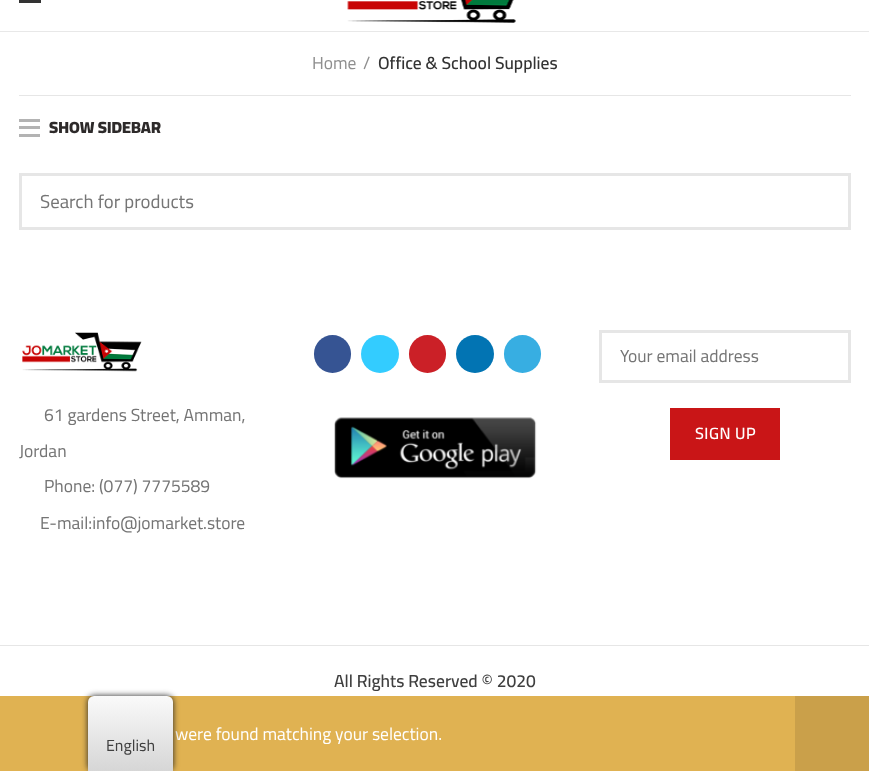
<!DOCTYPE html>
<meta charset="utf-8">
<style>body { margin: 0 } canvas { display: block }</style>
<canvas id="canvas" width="869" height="771"></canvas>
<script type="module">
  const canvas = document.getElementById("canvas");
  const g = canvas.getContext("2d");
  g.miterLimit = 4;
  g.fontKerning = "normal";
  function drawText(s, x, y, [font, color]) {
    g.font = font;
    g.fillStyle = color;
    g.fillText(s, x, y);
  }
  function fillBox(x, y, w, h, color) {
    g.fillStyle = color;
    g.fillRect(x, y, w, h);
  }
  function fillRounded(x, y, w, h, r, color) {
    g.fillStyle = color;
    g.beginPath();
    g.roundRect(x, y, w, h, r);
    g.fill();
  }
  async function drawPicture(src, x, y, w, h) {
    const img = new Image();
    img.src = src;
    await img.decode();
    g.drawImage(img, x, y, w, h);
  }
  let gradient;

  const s1 = ["17.5px Cairo", "#8E8E8E"];
  const s2 = ["600 17.5px Cairo", "#333333"];
  const s3 = ["900 16.25px Cairo", "#2D2A2A"];
  const s4 = ["18.75px Cairo", "#757575"];
  const s5 = ["17.5px Cairo", "#FFFFFF"];
  const s6 = ["17.5px Cairo", "#757575"];
  const s7 = ["600 16.25px Cairo", "#FFFFFF"];
  const s8 = ["600 17.5px Cairo", "#3F3F3F"];
  const s9 = ["16px Cairo", "#3F3F3F"];

  fillBox(0, 0, 869, 771, "#FFFFFF");
  fillBox(0, 31, 869, 1, "#E8E8E8");
  fillBox(19, 0, 22, 3, "#333333");
  await drawPicture("pic1.png", 347, 0, 169, 23);
  fillBox(19, 95, 832, 1, "#E6E6E6");
  drawText("Home", 312, 69, s1);
  drawText("/", 363, 69, s1);
  drawText("Office & School Supplies", 378, 69, s2);
  fillBox(19, 126, 21, 3, "#B3B3B3");
  fillBox(19, 119, 21, 3, "#B3B3B3");
  fillBox(19, 134, 21, 3, "#B3B3B3");
  drawText("SHOW SIDEBAR", 49, 133, s3);
  g.strokeStyle = "#E6E6E6";
  g.lineWidth = 3;
  g.strokeRect(20.5, 174.5, 829, 54);
  drawText("Search for products", 40, 208, s4);
  fillBox(0, 696, 795, 75, "#E0B252");
  drawText("were found matching your selection.", 175, 740, s5);
  fillBox(795, 696, 74, 75, "#CAA04A");
  fillRounded(314, 335, 37, 38, 18.5, "#365493");
  g.fillStyle = "#33CCFF";
  g.beginPath();
  g.arc(380, 354, 19, 0, Math.PI * 2);
  g.fill();
  fillRounded(409, 335, 37, 38, 18.5, "#CB2027");
  g.fillStyle = "#0274B3";
  g.beginPath();
  g.arc(475, 354, 19, 0, Math.PI * 2);
  g.fill();
  fillRounded(504, 335, 37, 38, 18.5, "#37AEE2");
  await drawPicture("pic2.png", 334, 417, 203, 62);
  g.strokeRect(600.5, 331.5, 249, 50);
  drawText("Your email address", 620, 362, s6);
  fillBox(670, 408, 110, 52, "#C91517");
  g.letterSpacing = "0.5px";
  drawText("SIGN UP", 695, 439, s7);
  await drawPicture("pic3.png", 22, 332, 120, 40);
  g.letterSpacing = "0px";
  drawText("61 gardens Street, Amman,", 44, 421, s6);
  drawText("Jordan", 19, 457, s6);
  drawText("Phone: (077) 7775589", 44, 492, s6);
  drawText("E-mail:info@jomarket.store", 40, 529, s6);
  fillBox(0, 645, 869, 1, "#E6E6E6");
  drawText("All Rights Reserved © 2020", 334, 687, s8);
  g.fillStyle = "#212121";
  g.filter = "blur(3px)";
  g.beginPath();
  g.roundRect(88, 696, 85, 75, 6);
  g.fill();
  g.filter = "none";
  gradient = g.createLinearGradient(130, 771, 130, 696);
  gradient.addColorStop(0, "#D6D6D6");
  gradient.addColorStop(1, "#FAFAFA");
  g.fillStyle = gradient;
  g.beginPath();
  g.roundRect(88, 696, 85, 75, [6, 6, 0, 0]);
  g.fill();
  drawText("English", 106, 751, s9);
</script>
